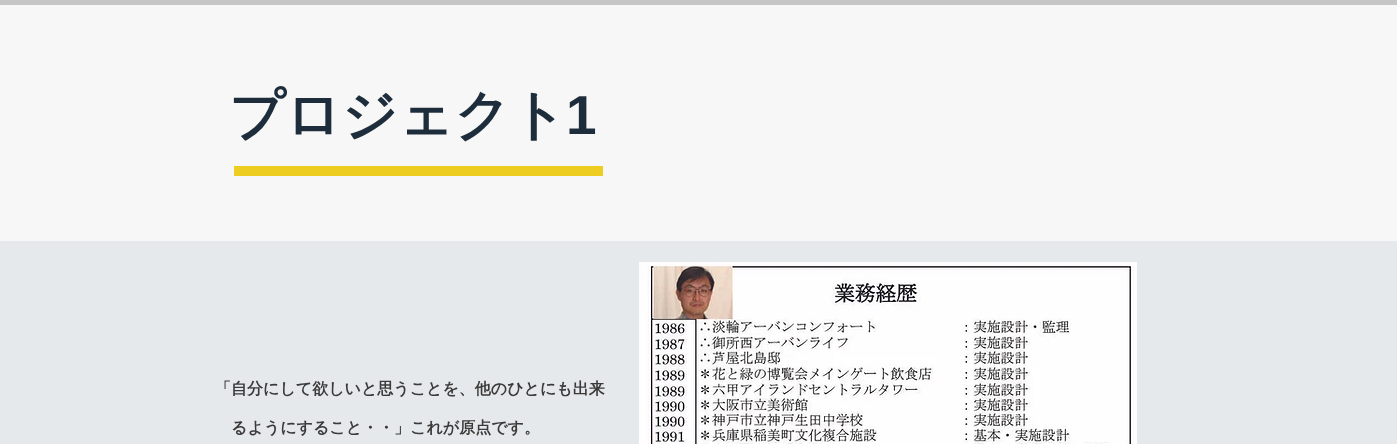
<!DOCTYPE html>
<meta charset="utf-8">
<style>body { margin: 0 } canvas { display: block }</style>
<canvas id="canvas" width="1397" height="444"></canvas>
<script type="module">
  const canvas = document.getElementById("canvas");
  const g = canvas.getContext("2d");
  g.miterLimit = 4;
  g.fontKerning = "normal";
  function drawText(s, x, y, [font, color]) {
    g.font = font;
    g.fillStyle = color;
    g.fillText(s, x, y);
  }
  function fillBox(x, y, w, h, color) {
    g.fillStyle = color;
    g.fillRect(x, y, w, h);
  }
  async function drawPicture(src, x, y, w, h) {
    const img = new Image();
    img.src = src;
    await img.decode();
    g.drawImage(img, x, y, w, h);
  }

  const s1 = ["bold 55px WenQuanYi Zen Hei", "#1E2D3B"];
  const s2 = ["bold 55px Liberation Sans", "#1E2D3B"];
  const s3 = ["bold 16px WenQuanYi Zen Hei", "#3B3A3A"];

  fillBox(0, 0, 1397, 444, "#F7F7F7");
  fillBox(0, 0, 1397, 5, "#C6C6C6");
  drawText("プロジェクト", 229, 134, s1);
  drawText("1", 566, 134, s2);
  fillBox(234, 166, 369, 10, "#EDCD1F");
  fillBox(0, 241, 1397, 203, "#E6E9EB");
  drawText("「自分にして欲しいと思うことを、他のひとにも出来", 215, 394, s3);
  drawText("るようにすること・・」これが原点です。", 231, 433, s3);
  await drawPicture("pic1.png", 639, 262, 498, 182);
</script>
